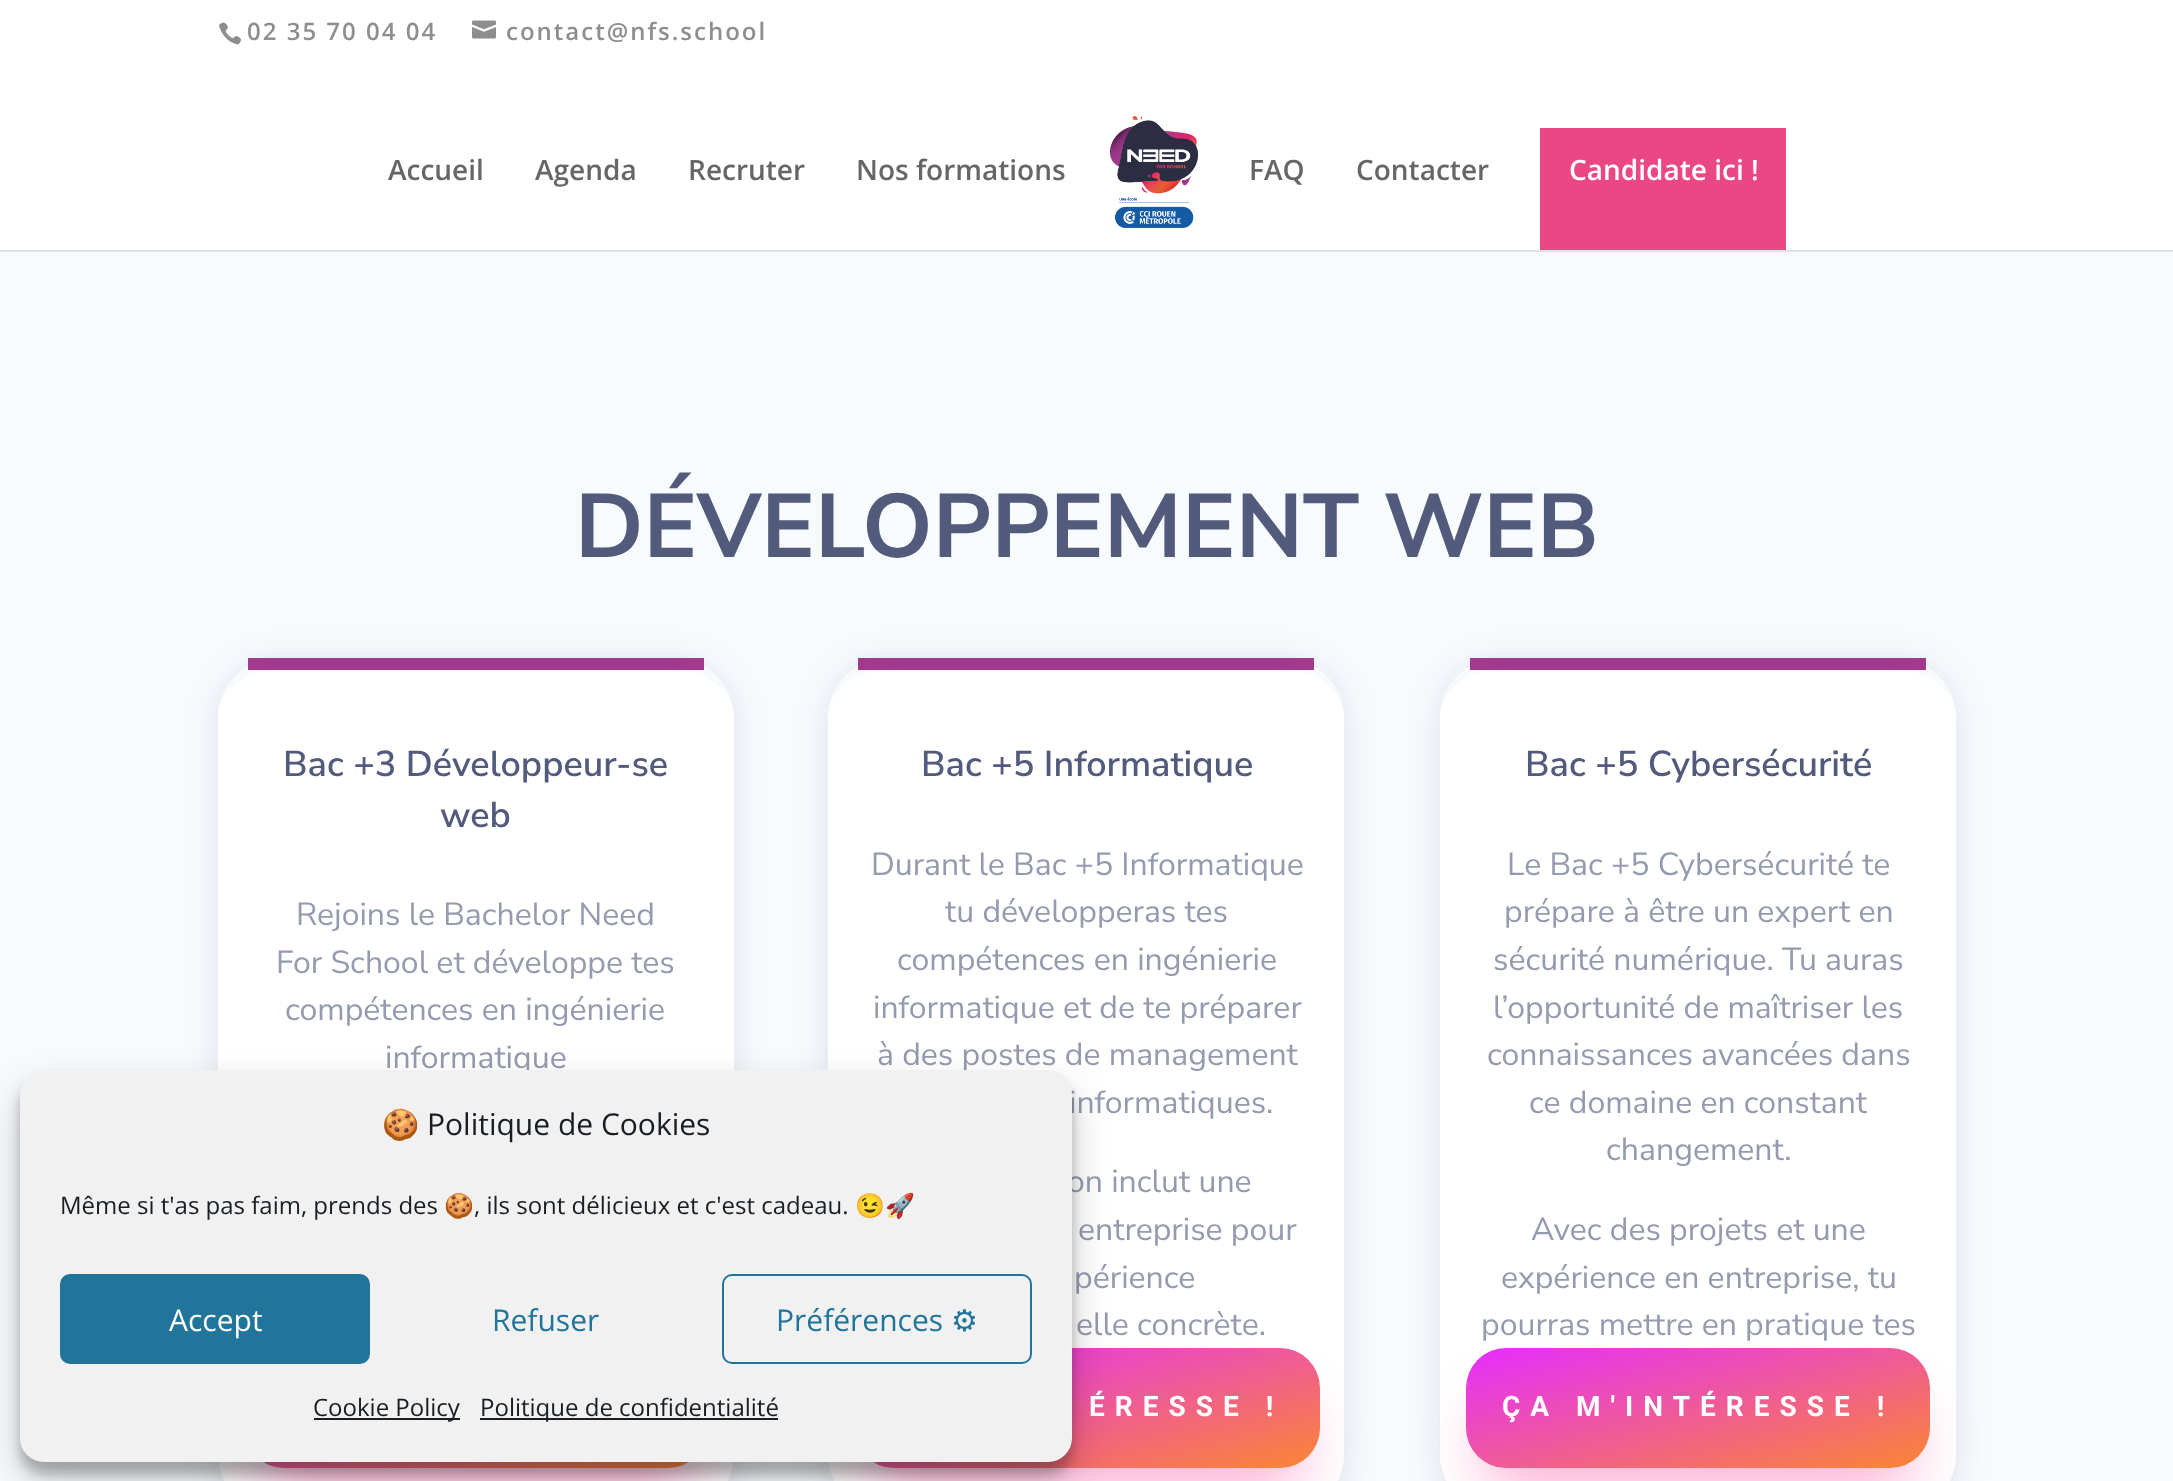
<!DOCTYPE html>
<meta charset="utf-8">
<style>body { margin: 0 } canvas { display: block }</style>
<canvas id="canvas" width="2173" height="1481"></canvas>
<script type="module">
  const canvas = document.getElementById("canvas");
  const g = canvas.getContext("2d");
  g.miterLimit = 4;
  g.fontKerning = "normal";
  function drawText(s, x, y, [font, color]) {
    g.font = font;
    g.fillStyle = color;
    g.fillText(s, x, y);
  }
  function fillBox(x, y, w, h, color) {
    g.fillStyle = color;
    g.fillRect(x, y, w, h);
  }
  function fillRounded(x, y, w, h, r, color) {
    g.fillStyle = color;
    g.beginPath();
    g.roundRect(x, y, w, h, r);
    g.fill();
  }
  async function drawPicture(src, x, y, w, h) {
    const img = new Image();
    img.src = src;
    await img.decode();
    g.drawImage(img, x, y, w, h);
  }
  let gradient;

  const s1 = ["600 24px Open Sans", "#8E8E8E"];
  const s2 = ["600 28px Open Sans", "#666666"];
  const s3 = ["600 28px Open Sans", "#FFFFFF"];
  const s4 = ["bold 90px Nunito Sans", "#535B7C"];
  const s5 = ["600 36px Nunito Sans", "#535B7C"];
  const s6 = ["32px Nunito Sans", "#959BAF"];
  const s7 = ["bold 28px Roboto", "#FFFFFF"];
  const s8 = ["30px Noto Color Emoji", "#191E23"];
  const s9 = ["30px Open Sans", "#191E23"];
  const s10 = ["24px Open Sans", "#191E23"];
  const s11 = ["24px Noto Color Emoji", "#191E23"];
  const s12 = ["30px Open Sans", "#FFFFFF"];
  const s13 = ["30px Open Sans", "#21759B"];
  const s14 = ["30px DejaVu Sans", "#21759B"];

  fillBox(0, 0, 2173, 1481, "#F8FBFE");
  fillBox(0, 0, 2173, 250, "#FFFFFF");
  await drawPicture("pic1.png", 219, 22, 22, 23);
  g.letterSpacing = "2px";
  drawText("02 35 70 04 04", 247, 40, s1);
  await drawPicture("pic2.png", 472, 20, 24, 19);
  drawText("contact@nfs.school", 506, 40, s1);
  fillBox(0, 250, 2173, 2, "#DFE2E5");
  g.letterSpacing = "0px";
  drawText("Accueil", 388, 180, s2);
  drawText("Agenda", 535, 180, s2);
  drawText("Recruter", 688, 180, s2);
  drawText("Nos formations", 856, 180, s2);
  await drawPicture("pic3.png", 1110, 116, 88, 112);
  drawText("FAQ", 1249, 180, s2);
  drawText("Contacter", 1356, 180, s2);
  fillBox(1540, 128, 246, 122, "#E94884");
  drawText("Candidate ici !", 1569, 180, s3);
  drawText("DÉVELOPPEMENT WEB", 575, 557, s4);
  g.save();
  g.beginPath();
  g.moveTo(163, 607);
  g.lineTo(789, 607);
  g.lineTo(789, 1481);
  g.lineTo(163, 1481);
  g.closePath();
  g.moveTo(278, 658);
  g.lineTo(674, 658);
  g.bezierCurveTo(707, 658, 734, 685, 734, 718);
  g.lineTo(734, 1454);
  g.bezierCurveTo(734, 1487, 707, 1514, 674, 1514);
  g.lineTo(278, 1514);
  g.bezierCurveTo(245, 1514, 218, 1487, 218, 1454);
  g.lineTo(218, 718);
  g.bezierCurveTo(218, 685, 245, 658, 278, 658);
  g.closePath();
  g.clip("evenodd");
  g.fillStyle = "rgba(34, 56, 101, 0.12)";
  g.filter = "blur(18px)";
  g.beginPath();
  g.roundRect(218, 662, 516, 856, 60);
  g.fill();
  g.filter = "none";
  g.restore();
  g.fillStyle = "#FFFFFF";
  g.beginPath();
  g.moveTo(278, 670);
  g.lineTo(674, 670);
  g.bezierCurveTo(707, 670, 734, 691, 734, 718);
  g.lineTo(734, 1454);
  g.bezierCurveTo(734, 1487, 707, 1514, 674, 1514);
  g.lineTo(278, 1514);
  g.bezierCurveTo(245, 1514, 218, 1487, 218, 1454);
  g.lineTo(218, 718);
  g.bezierCurveTo(218, 691, 245, 670, 278, 670);
  g.closePath();
  g.fill();
  fillBox(248, 658, 456, 12, "#A13A8D");
  drawText("Bac +3 Développeur-se", 283, 776, s5);
  drawText("web", 440, 827, s5);
  drawText("Rejoins le Bachelor Need", 296, 925, s6);
  drawText("For School et développe tes", 276, 973, s6);
  drawText("compétences en ingénierie", 285, 1020, s6);
  drawText("informatique", 385, 1068, s6);
  g.fillStyle = "rgba(249, 44, 139, 0.4)";
  g.filter = "blur(30px)";
  g.beginPath();
  g.roundRect(264, 1408, 424, 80, 20);
  g.fill();
  g.filter = "none";
  gradient = g.createLinearGradient(445, 1294, 507, 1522);
  gradient.addColorStop(0, "#E62DFF");
  gradient.addColorStop(1, "#F98634");
  g.fillStyle = gradient;
  g.beginPath();
  g.roundRect(244, 1348, 464, 120, 40);
  g.fill();
  g.save();
  g.beginPath();
  g.moveTo(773, 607);
  g.lineTo(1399, 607);
  g.lineTo(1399, 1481);
  g.lineTo(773, 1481);
  g.closePath();
  g.moveTo(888, 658);
  g.lineTo(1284, 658);
  g.bezierCurveTo(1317, 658, 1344, 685, 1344, 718);
  g.lineTo(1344, 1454);
  g.bezierCurveTo(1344, 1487, 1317, 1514, 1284, 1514);
  g.lineTo(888, 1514);
  g.bezierCurveTo(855, 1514, 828, 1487, 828, 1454);
  g.lineTo(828, 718);
  g.bezierCurveTo(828, 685, 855, 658, 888, 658);
  g.closePath();
  g.clip("evenodd");
  g.fillStyle = "rgba(34, 56, 101, 0.12)";
  g.filter = "blur(18px)";
  g.beginPath();
  g.roundRect(828, 662, 516, 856, 60);
  g.fill();
  g.filter = "none";
  g.restore();
  g.fillStyle = "#FFFFFF";
  g.beginPath();
  g.moveTo(888, 670);
  g.lineTo(1284, 670);
  g.bezierCurveTo(1317, 670, 1344, 691, 1344, 718);
  g.lineTo(1344, 1454);
  g.bezierCurveTo(1344, 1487, 1317, 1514, 1284, 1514);
  g.lineTo(888, 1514);
  g.bezierCurveTo(855, 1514, 828, 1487, 828, 1454);
  g.lineTo(828, 718);
  g.bezierCurveTo(828, 691, 855, 670, 888, 670);
  g.closePath();
  g.fill();
  fillBox(858, 658, 456, 12, "#A13A8D");
  drawText("Bac +5 Informatique", 921, 776, s5);
  drawText("Durant le Bac +5 Informatique", 871, 875, s6);
  drawText("tu développeras tes", 945, 922, s6);
  drawText("compétences en ingénierie", 897, 970, s6);
  drawText("informatique et de te préparer", 873, 1018, s6);
  drawText("à des postes de management", 877, 1065, s6);
  drawText("informatiques.", 1069, 1113, s6);
  drawText("on inclut une", 1067, 1192, s6);
  drawText("entreprise pour", 1078, 1240, s6);
  drawText("périence", 1074, 1288, s6);
  drawText("elle concrète.", 1076, 1335, s6);
  g.fillStyle = "rgba(249, 44, 139, 0.4)";
  g.filter = "blur(30px)";
  g.beginPath();
  g.roundRect(874, 1408, 426, 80, 20);
  g.fill();
  g.filter = "none";
  gradient = g.createLinearGradient(1056, 1294, 1118, 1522);
  gradient.addColorStop(0, "#E62DFF");
  gradient.addColorStop(1, "#F98634");
  g.fillStyle = gradient;
  g.beginPath();
  g.roundRect(854, 1348, 466, 120, 40);
  g.fill();
  g.letterSpacing = "10px";
  drawText("ÉRESSE !", 1089, 1416, s7);
  g.save();
  g.beginPath();
  g.moveTo(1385, 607);
  g.lineTo(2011, 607);
  g.lineTo(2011, 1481);
  g.lineTo(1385, 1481);
  g.closePath();
  g.moveTo(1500, 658);
  g.lineTo(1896, 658);
  g.bezierCurveTo(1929, 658, 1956, 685, 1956, 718);
  g.lineTo(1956, 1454);
  g.bezierCurveTo(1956, 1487, 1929, 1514, 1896, 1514);
  g.lineTo(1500, 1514);
  g.bezierCurveTo(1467, 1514, 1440, 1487, 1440, 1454);
  g.lineTo(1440, 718);
  g.bezierCurveTo(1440, 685, 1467, 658, 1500, 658);
  g.closePath();
  g.clip("evenodd");
  g.fillStyle = "rgba(34, 56, 101, 0.12)";
  g.filter = "blur(18px)";
  g.beginPath();
  g.roundRect(1440, 662, 516, 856, 60);
  g.fill();
  g.filter = "none";
  g.restore();
  g.beginPath();
  g.moveTo(1500, 670);
  g.lineTo(1896, 670);
  g.bezierCurveTo(1929, 670, 1956, 691, 1956, 718);
  g.lineTo(1956, 1454);
  g.bezierCurveTo(1956, 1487, 1929, 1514, 1896, 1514);
  g.lineTo(1500, 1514);
  g.bezierCurveTo(1467, 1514, 1440, 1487, 1440, 1454);
  g.lineTo(1440, 718);
  g.bezierCurveTo(1440, 691, 1467, 670, 1500, 670);
  g.closePath();
  g.fill();
  fillBox(1470, 658, 456, 12, "#A13A8D");
  g.letterSpacing = "0px";
  drawText("Bac +5 Cybersécurité", 1525, 776, s5);
  drawText("Le Bac +5 Cybersécurité te", 1507, 875, s6);
  drawText("prépare à être un expert en", 1504, 922, s6);
  drawText("sécurité numérique. Tu auras", 1493, 970, s6);
  drawText("l’opportunité de maîtriser les", 1493, 1018, s6);
  drawText("connaissances avancées dans", 1487, 1065, s6);
  drawText("ce domaine en constant", 1529, 1113, s6);
  drawText("changement.", 1606, 1160, s6);
  drawText("Avec des projets et une", 1531, 1240, s6);
  drawText("expérience en entreprise, tu", 1501, 1288, s6);
  drawText("pourras mettre en pratique tes", 1481, 1335, s6);
  g.fillStyle = "rgba(249, 44, 139, 0.4)";
  g.filter = "blur(30px)";
  g.beginPath();
  g.roundRect(1486, 1408, 424, 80, 20);
  g.fill();
  g.filter = "none";
  gradient = g.createLinearGradient(1667, 1294, 1729, 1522);
  gradient.addColorStop(0, "#E62DFF");
  gradient.addColorStop(1, "#F98634");
  g.fillStyle = gradient;
  g.beginPath();
  g.roundRect(1466, 1348, 464, 120, 40);
  g.fill();
  g.letterSpacing = "10px";
  drawText("ÇA M'INTÉRESSE !", 1502, 1416, s7);
  g.fillStyle = "rgba(0, 0, 0, 0.23)";
  g.filter = "blur(6px)";
  g.beginPath();
  g.roundRect(20, 1082, 1052, 392, 24);
  g.fill();
  g.filter = "none";
  g.fillStyle = "rgba(0, 0, 0, 0.19)";
  g.filter = "blur(20px)";
  g.beginPath();
  g.roundRect(20, 1090, 1052, 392, 24);
  g.fill();
  g.filter = "none";
  fillRounded(20, 1070, 1052, 392, 24, "#F1F1F1");
  g.letterSpacing = "0px";
  drawText("🍪", 382, 1135, s8);
  drawText("Politique de Cookies", 427, 1135, s9);
  drawText("Même si t'as pas faim, prends des", 60, 1214, s10);
  drawText("🍪", 444, 1214, s11);
  drawText(", ils sont délicieux et c'est cadeau.", 474, 1214, s10);
  drawText("😉🚀", 855, 1214, s11);
  g.fillStyle = "#21759B";
  g.beginPath();
  g.roundRect(61, 1275, 308, 88, 9);
  g.fill();
  g.strokeStyle = "#21759B";
  g.lineWidth = 2;
  g.stroke();
  drawText("Accept", 169, 1331, s12);
  drawText("Refuser", 492, 1331, s13);
  g.beginPath();
  g.roundRect(723, 1275, 308, 88, 9);
  g.stroke();
  drawText("Préférences", 776, 1331, s13);
  drawText("⚙", 951, 1331, s14);
  fillBox(314, 1418, 146, 2, "#191E23");
  drawText("Cookie Policy", 313, 1416, s10);
  fillBox(480, 1418, 298, 2, "#191E23");
  drawText("Politique de confidentialité", 480, 1416, s10);
</script>
